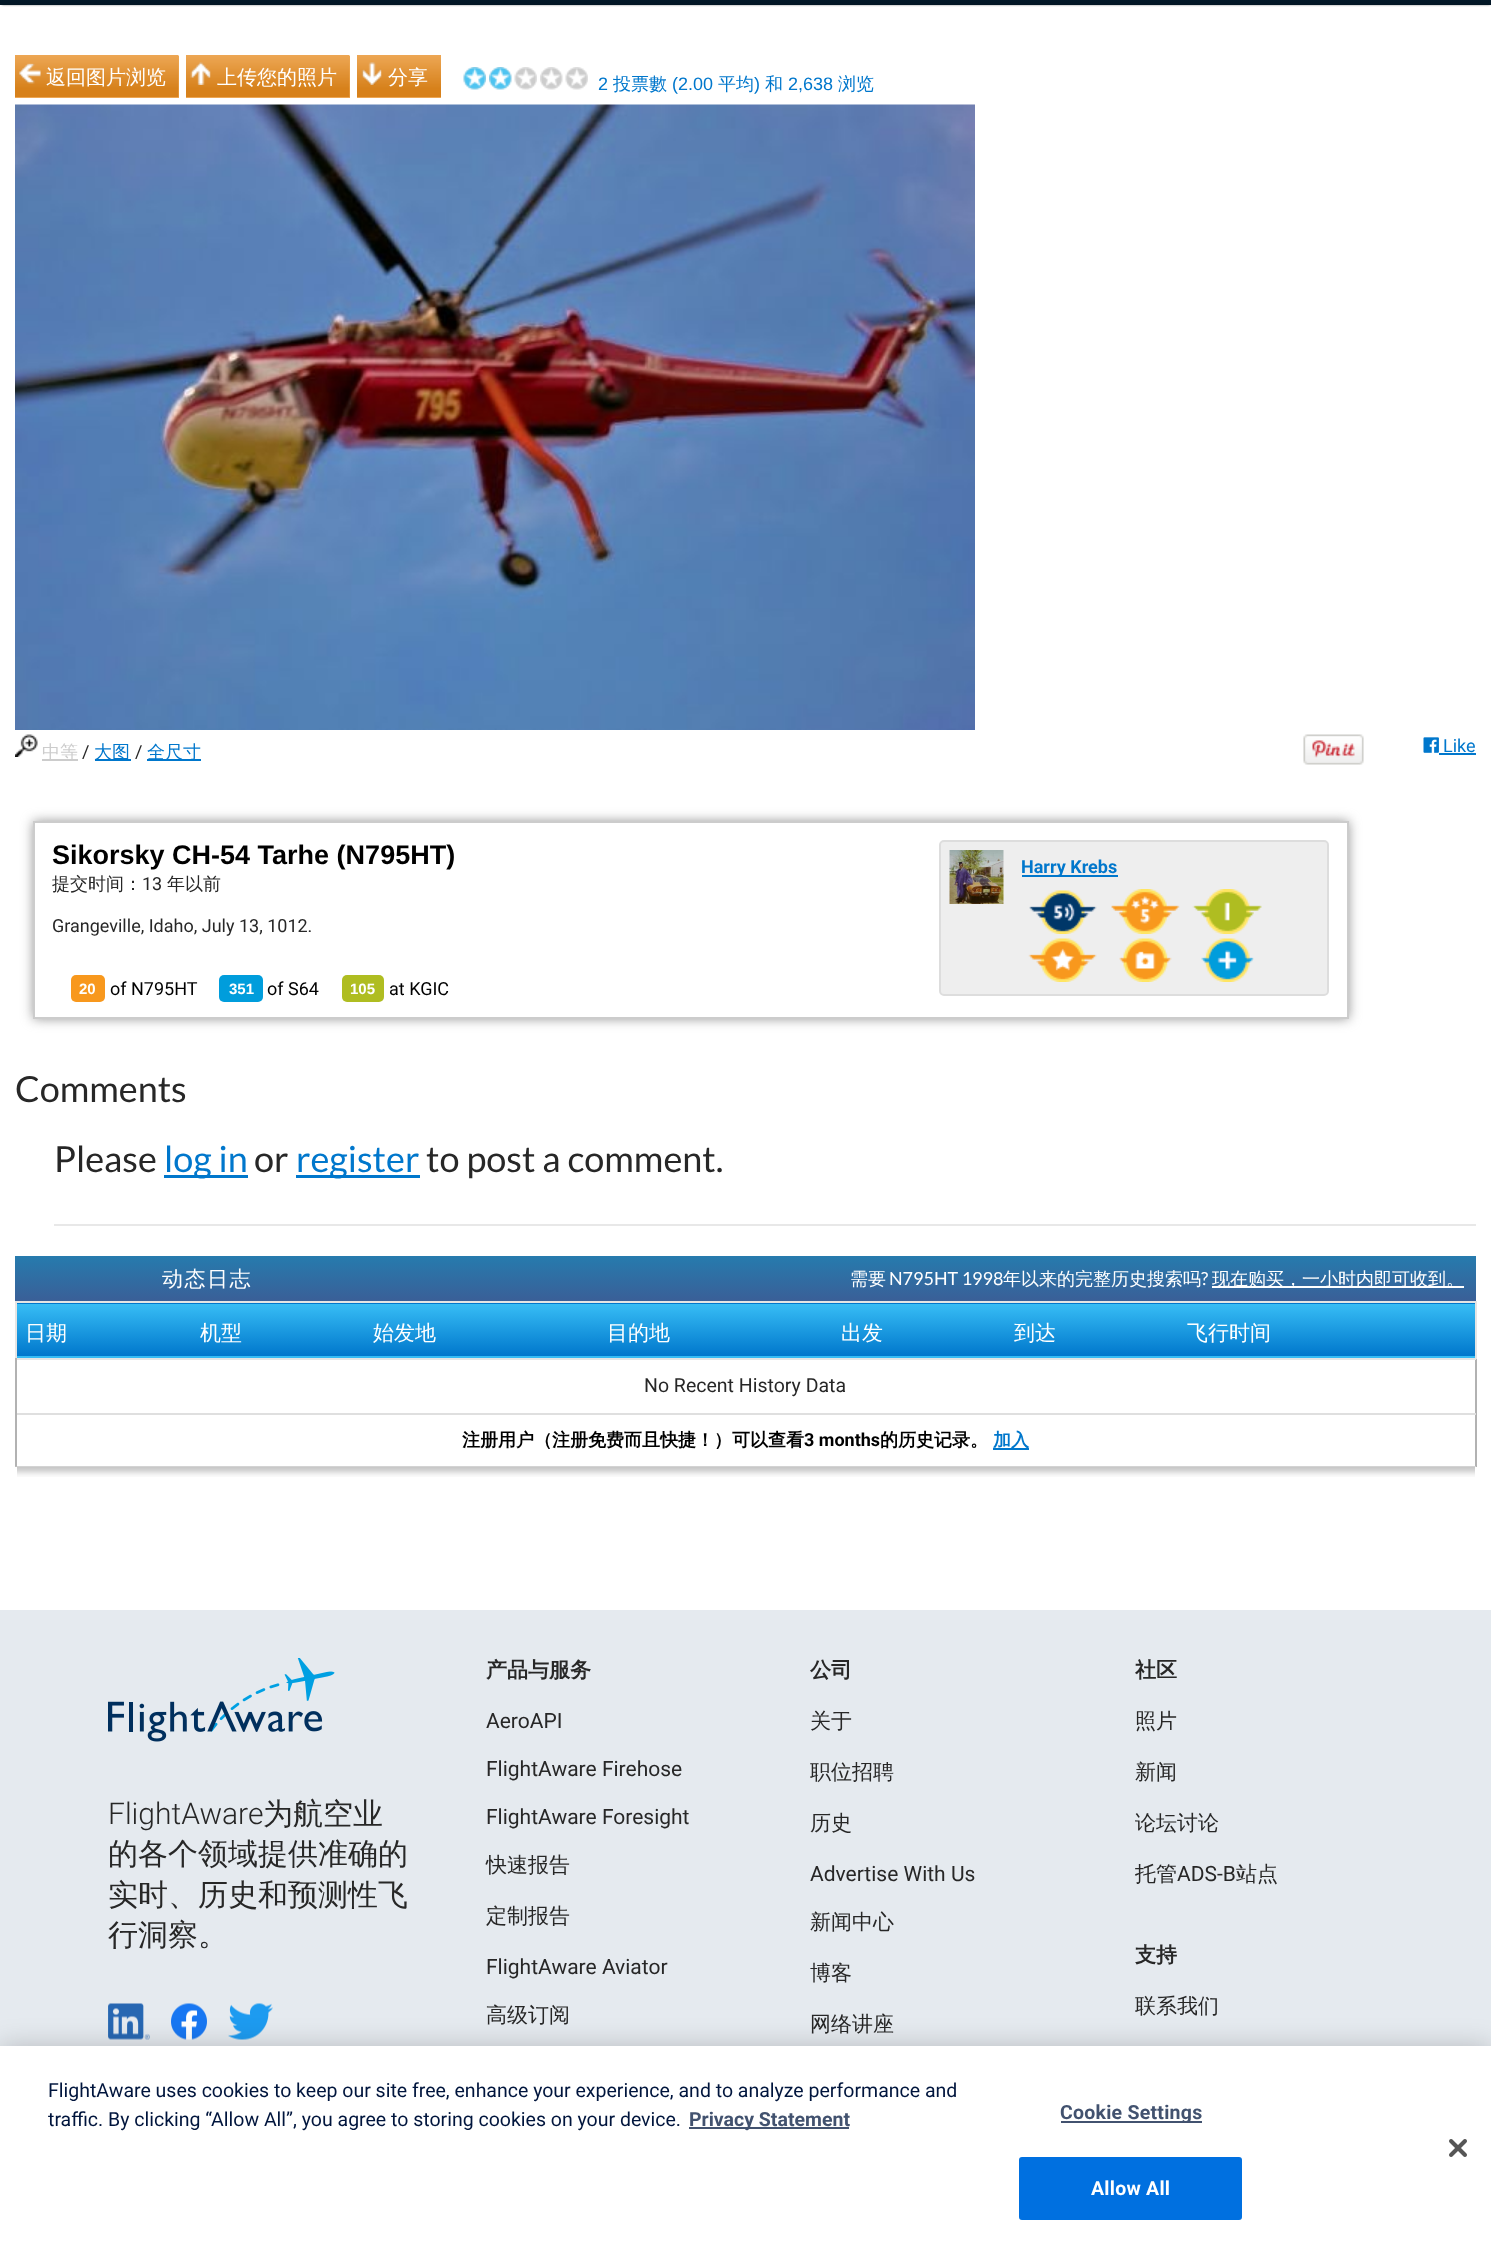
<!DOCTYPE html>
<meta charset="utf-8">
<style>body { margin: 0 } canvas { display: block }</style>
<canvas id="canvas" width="1491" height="2249"></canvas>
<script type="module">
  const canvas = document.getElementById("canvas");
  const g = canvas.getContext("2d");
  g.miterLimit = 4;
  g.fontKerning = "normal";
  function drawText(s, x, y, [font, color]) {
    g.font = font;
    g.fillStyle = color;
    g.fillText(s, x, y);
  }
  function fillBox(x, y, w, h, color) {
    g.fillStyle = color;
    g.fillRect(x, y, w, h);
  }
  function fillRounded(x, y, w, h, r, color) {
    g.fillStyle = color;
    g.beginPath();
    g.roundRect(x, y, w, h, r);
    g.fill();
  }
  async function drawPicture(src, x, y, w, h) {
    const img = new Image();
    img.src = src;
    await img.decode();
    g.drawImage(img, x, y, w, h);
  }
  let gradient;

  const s1 = ["500 20px WenQuanYi Zen Hei", "#FFFFFF"];
  const s2 = ["18px Liberation Sans", "#0077CC"];
  const s3 = ["500 18px WenQuanYi Zen Hei", "#0077CC"];
  const s4 = ["500 18px WenQuanYi Zen Hei", "#CCCCCC"];
  const s5 = ["18px Roboto", "#272727"];
  const s6 = ["18px Roboto", "#0077CC"];
  const s7 = ["bold 27px Liberation Sans", "#000000"];
  const s8 = ["500 18px WenQuanYi Zen Hei", "#272727"];
  const s9 = ["bold 15px Liberation Sans", "#FFFFFF"];
  const s10 = ["18px Roboto", "#000000"];
  const s11 = ["bold 18px Roboto", "#0077CC"];
  const s12 = ["36px Lato", "#272727"];
  const s13 = ["36px Lato", "#0077CC"];
  const s14 = ["500 21px WenQuanYi Zen Hei", "#FFFFFF"];
  const s15 = ["500 18px WenQuanYi Zen Hei", "#FFFFFF"];
  const s16 = ["18px Lato", "#FFFFFF"];
  const s17 = ["19.5px Roboto", "#272727"];
  const s18 = ["bold 18px WenQuanYi Zen Hei", "#000000"];
  const s19 = ["bold 18px Roboto", "#000000"];
  const s20 = ["bold 18px WenQuanYi Zen Hei", "#0077CC"];
  const s21 = ["300 30px Roboto", "#272727"];
  const s22 = ["500 30px WenQuanYi Zen Hei", "#272727"];
  const s23 = ["bold 21px WenQuanYi Zen Hei", "#272727"];
  const s24 = ["21px Roboto", "#272727"];
  const s25 = ["500 21px WenQuanYi Zen Hei", "#272727"];
  const s26 = ["19.5px Roboto", "#00153D"];
  const s27 = ["bold 19.5px Roboto", "#42526F"];
  const s28 = ["bold 19.5px Roboto", "#FFFFFF"];

  fillBox(0, 0, 1491, 2249, "#FFFFFF");
  g.fillStyle = "#888888";
  g.filter = "blur(1px)";
  g.beginPath();
  g.rect(2, -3, 1488, 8);
  g.fill();
  g.filter = "none";
  gradient = g.createLinearGradient(746, -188, 746, 4.5);
  gradient.addColorStop(0, "#002F5D");
  gradient.addColorStop(0.6, "#002F5D");
  gradient.addColorStop(1, "#021624");
  g.fillStyle = gradient;
  g.fillRect(0, 0, 1491, 5);
  fillBox(15, 56, 164, 42, "#EDA653");
  await drawPicture("pic1.png", 15, 55, 164, 42);
  await drawPicture("pic2.png", 19, 63, 22, 21);
  drawText("返回图片浏览", 46, 84, s1);
  fillBox(186, 56, 164, 42, "#EDA653");
  await drawPicture("pic1.png", 186, 55, 164, 42);
  await drawPicture("pic3.png", 190, 62, 21, 23);
  drawText("上传您的照片", 217, 84, s1);
  fillBox(357, 97, 84, 1, "#EDA653");
  await drawPicture("pic4.png", 357, 55, 84, 42);
  await drawPicture("pic5.png", 361, 62, 21, 23);
  drawText("分享", 388, 84, s1);
  await drawPicture("pic6.png", 463, 67, 23, 23);
  await drawPicture("pic7.png", 489, 67, 23, 23);
  await drawPicture("pic8.png", 514, 67, 23, 23);
  await drawPicture("pic9.png", 540, 67, 23, 23);
  await drawPicture("pic10.png", 565, 67, 23, 23);
  drawText("2", 598, 90, s2);
  drawText("投票數", 613, 90, s3);
  drawText("(2.00", 672, 90, s2);
  drawText("平均", 718, 90, s3);
  drawText(")", 754, 90, s2);
  drawText("和", 765, 90, s3);
  drawText("2,638", 788, 90, s2);
  drawText("浏览", 838, 90, s3);
  await drawPicture("pic11.png", 15, 104, 960, 626);
  await drawPicture("pic12.png", 15, 734, 23, 23);
  fillBox(42, 759, 36, 2, "#CCCCCC");
  drawText("中等", 42, 758, s4);
  drawText("/", 82, 758, s5);
  fillBox(95, 759, 36, 2, "#0077CC");
  drawText("大图", 94, 758, s3);
  drawText("/", 135, 758, s5);
  fillBox(147, 759, 54, 2, "#0077CC");
  drawText("全尺寸", 147, 758, s3);
  await drawPicture("pic13.png", 1303, 734, 61, 31);
  await drawPicture("pic14.png", 1423, 737, 16, 16);
  drawText("Like", 1443, 752, s6);
  fillBox(1439, 753, 37, 2, "#0077CC");
  g.save();
  g.beginPath();
  g.moveTo(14, 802);
  g.lineTo(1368, 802);
  g.lineTo(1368, 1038);
  g.lineTo(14, 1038);
  g.closePath();
  g.moveTo(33, 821);
  g.lineTo(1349, 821);
  g.lineTo(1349, 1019);
  g.lineTo(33, 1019);
  g.closePath();
  g.clip("evenodd");
  g.fillStyle = "#999999";
  g.filter = "blur(6px)";
  g.beginPath();
  g.rect(33, 821, 1316, 198);
  g.fill();
  g.filter = "none";
  g.restore();
  g.strokeStyle = "#CCCCCC";
  g.lineWidth = 2;
  g.strokeRect(34, 822, 1314, 196);
  drawText("Sikorsky CH-54 Tarhe (N795HT)", 52, 864, s7);
  drawText("提交时间：", 52, 890, s8);
  drawText("13", 142, 890, s5);
  drawText("年以前", 167, 890, s8);
  drawText("Grangeville, Idaho, July 13, 1012.", 52, 932, s5);
  fillRounded(71, 975, 34, 27, 5, "#F8981D");
  drawText("20", 79, 994, s9);
  drawText("of N795HT", 110, 995, s10);
  fillRounded(219, 975, 44, 27, 5, "#009DDC");
  drawText("351", 229, 994, s9);
  drawText("of S64", 267, 995, s10);
  fillRounded(342, 975, 42, 27, 5, "#AFBD21");
  drawText("105", 350, 994, s9);
  drawText("at KGIC", 389, 995, s10);
  g.fillStyle = "#EEEEEE";
  g.beginPath();
  g.roundRect(940, 841, 388, 154, 4);
  g.fill();
  g.strokeStyle = "#DDDDDD";
  g.stroke();
  await drawPicture("pic15.png", 949, 850, 55, 54);
  fillBox(1022, 875, 96, 2, "#0077CC");
  drawText("Harry Krebs", 1021, 873, s11);
  await drawPicture("pic16.png", 1029, 890, 68, 44);
  await drawPicture("pic17.png", 1111, 889, 69, 45);
  await drawPicture("pic18.png", 1192, 889, 70, 45);
  await drawPicture("pic19.png", 1028, 938, 69, 44);
  await drawPicture("pic20.png", 1119, 938, 53, 44);
  await drawPicture("pic21.png", 1201, 938, 53, 44);
  drawText("Comments", 15, 1102, s12);
  fillBox(54, 1224, 1422, 2, "#E8E8E8");
  drawText("Please", 54, 1172, s12);
  fillBox(164, 1175, 84, 3, "#0077CC");
  drawText("log in", 164, 1172, s13);
  drawText("or", 254, 1172, s12);
  fillBox(296, 1175, 124, 3, "#0077CC");
  drawText("register", 296, 1172, s13);
  drawText("to post a comment.", 426, 1172, s12);
  gradient = g.createLinearGradient(15, 1256, 15, 1301);
  gradient.addColorStop(0, "#267BAE");
  gradient.addColorStop(1, "#3A5F97");
  g.fillStyle = gradient;
  g.fillRect(15, 1256, 1461, 45);
  g.letterSpacing = "1.5px";
  drawText("动态日志", 162, 1286, s14);
  g.letterSpacing = "0px";
  drawText("需要", 850, 1285, s15);
  drawText("N795HT 1998", 889, 1285, s16);
  drawText("年以来的完整历史搜索吗", 1003, 1285, s15);
  drawText("?", 1201, 1285, s16);
  fillBox(1212, 1286, 252, 2, "#FFFFFF");
  drawText("现在购买，一小时内即可收到。", 1212, 1285, s15);
  fillBox(1475, 1359, 2, 108, "#B2B2B2");
  gradient = g.createLinearGradient(17, 1251, 17, 1304);
  gradient.addColorStop(0, "#37BDF5");
  gradient.addColorStop(1, "#0077CC");
  g.fillStyle = gradient;
  g.fillRect(15, 1303, 1461, 1);
  gradient = g.createLinearGradient(17, 1304, 17, 1356);
  gradient.addColorStop(0, "#37BDF5");
  gradient.addColorStop(1, "#0077CC");
  g.fillStyle = gradient;
  g.fillRect(17, 1304, 1458, 52);
  gradient = g.createLinearGradient(17, 1356, 17, 1409);
  gradient.addColorStop(0, "#37BDF5");
  gradient.addColorStop(1, "#0077CC");
  g.fillStyle = gradient;
  g.fillRect(15, 1356, 1461, 2);
  fillBox(15, 1301, 1461, 2, "#E5E5E4");
  fillBox(1475, 1301, 2, 58, "#E5E5E4");
  fillBox(15, 1358, 1461, 2, "#E5E5E4");
  fillBox(15, 1301, 2, 58, "#E5E5E4");
  drawText("日期", 25, 1340, s14);
  drawText("机型", 200, 1340, s14);
  drawText("始发地", 373, 1340, s14);
  drawText("目的地", 607, 1340, s14);
  drawText("出发", 841, 1340, s14);
  drawText("到达", 1014, 1340, s14);
  drawText("飞行时间", 1187, 1340, s14);
  fillBox(15, 1413, 1461, 2, "#DFDFDF");
  drawText("No Recent History Data", 644, 1392, s17);
  fillBox(15, 1466, 1461, 1, "#DFDFDF");
  fillBox(15, 1358, 2, 109, "#B2B2B2");
  drawText("注册用户（注册免费而且快捷！）可以查看", 462, 1446, s18);
  drawText("3 months", 804, 1446, s19);
  drawText("的历史记录。", 880, 1446, s18);
  fillBox(993, 1448, 36, 2, "#0077CC");
  drawText("加入", 993, 1446, s20);
  await drawPicture("pic22.png", 15, 1466, 1461, 11);
  fillBox(1475, 1467, 1, 10, "#FFFFFF");
  fillBox(15, 1467, 2, 10, "#FFFFFF");
  fillBox(0, 1610, 1491, 436, "#E5EAEF");
  await drawPicture("pic23.png", 108, 1658, 227, 84);
  drawText("FlightAware", 108, 1824, s21);
  drawText("为航空业", 263, 1824, s22);
  drawText("的各个领域提供准确的", 108, 1864, s22);
  drawText("实时、历史和预测性飞", 108, 1905, s22);
  drawText("行洞察。", 108, 1945, s22);
  await drawPicture("pic24.png", 108, 2003, 42, 37);
  await drawPicture("pic25.png", 171, 2003, 36, 37);
  await drawPicture("pic26.png", 228, 2003, 45, 37);
  drawText("产品与服务", 486, 1677, s23);
  drawText("AeroAPI", 486, 1728, s24);
  drawText("FlightAware Firehose", 486, 1776, s24);
  drawText("FlightAware Foresight", 486, 1824, s24);
  drawText("快速报告", 486, 1872, s25);
  drawText("定制报告", 486, 1923, s25);
  drawText("FlightAware Aviator", 486, 1974, s24);
  drawText("高级订阅", 486, 2022, s25);
  drawText("公司", 810, 1677, s23);
  drawText("关于", 810, 1728, s25);
  drawText("职位招聘", 810, 1779, s25);
  drawText("历史", 810, 1830, s25);
  drawText("Advertise With Us", 810, 1881, s24);
  drawText("新闻中心", 810, 1929, s25);
  drawText("博客", 810, 1980, s25);
  drawText("网络讲座", 810, 2031, s25);
  drawText("社区", 1135, 1677, s23);
  drawText("照片", 1135, 1728, s25);
  drawText("新闻", 1135, 1779, s25);
  drawText("论坛讨论", 1135, 1830, s25);
  drawText("托管", 1135, 1881, s25);
  drawText("ADS-B", 1177, 1881, s24);
  drawText("站点", 1236, 1881, s25);
  drawText("支持", 1135, 1962, s23);
  drawText("联系我们", 1135, 2013, s25);
  g.fillStyle = "rgba(0, 0, 0, 0.2)";
  g.filter = "blur(13.5px)";
  g.beginPath();
  g.rect(0, 2046, 1491, 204);
  g.fill();
  g.filter = "none";
  fillBox(0, 2046, 1491, 203, "#FFFFFF");
  drawText("FlightAware uses cookies to keep our site free, enhance your experience, and to analyze performance and", 48, 2097, s26);
  drawText("traffic. By clicking “Allow All”, you agree to storing cookies on your device.", 48, 2126, s26);
  fillBox(689, 2127, 160, 2, "#42526F");
  drawText("Privacy Statement", 689, 2126, s27);
  fillBox(1061, 2121, 141, 2, "#42526F");
  g.letterSpacing = "0.25px";
  drawText("Cookie Settings", 1060, 2119, s27);
  g.fillStyle = "#0070E0";
  g.beginPath();
  g.roundRect(1020, 2158, 221, 61, 2);
  g.fill();
  g.strokeStyle = "#0070E0";
  g.stroke();
  drawText("Allow All", 1091, 2195, s28);
  await drawPicture("pic27.png", 1449, 2139, 18, 18);
</script>
